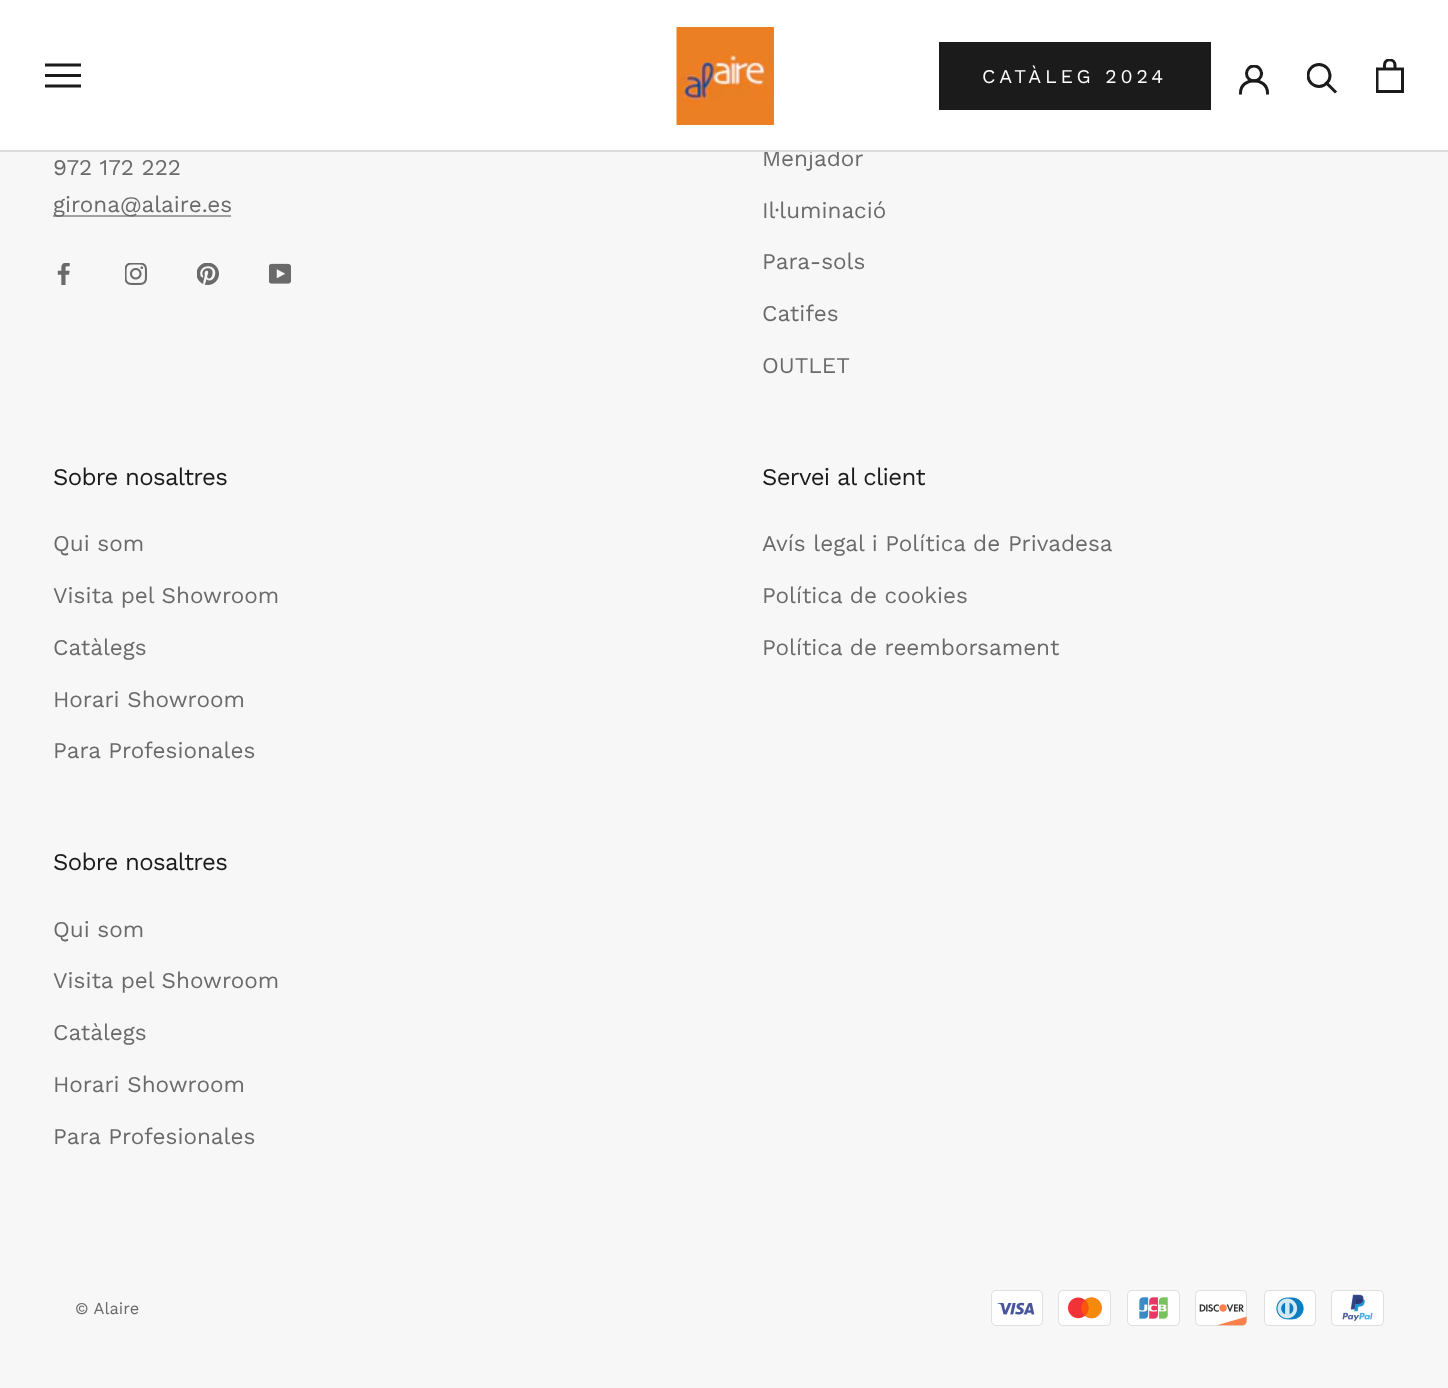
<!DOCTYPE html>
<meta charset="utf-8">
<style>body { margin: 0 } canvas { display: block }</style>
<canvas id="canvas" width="1448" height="1388"></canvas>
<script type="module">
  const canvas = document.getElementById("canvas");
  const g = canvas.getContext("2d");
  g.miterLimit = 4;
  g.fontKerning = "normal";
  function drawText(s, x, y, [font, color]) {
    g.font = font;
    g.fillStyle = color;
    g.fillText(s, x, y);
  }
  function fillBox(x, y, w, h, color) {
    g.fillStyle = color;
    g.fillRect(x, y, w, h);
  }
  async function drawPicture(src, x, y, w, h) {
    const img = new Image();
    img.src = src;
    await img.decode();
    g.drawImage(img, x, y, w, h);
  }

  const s1 = ["22.5px Work Sans", "#6A6A6A"];
  const s2 = ["19.5px Work Sans", "#FFFFFF"];
  const s3 = ["24px Work Sans", "#1C1B1B"];
  const s4 = ["16.5px Work Sans", "#6A6A6A"];

  fillBox(0, 0, 1448, 1388, "#F7F7F7");
  drawText("Menjador", 762, 166, s1);
  fillBox(0, 0, 1448, 150, "#FFFFFF");
  fillBox(0, 150, 1448, 2, "#DDDDDD");
  g.fillStyle = "#1C1B1B";
  g.beginPath();
  g.moveTo(45, 87.5);
  g.lineTo(45, 84.5);
  g.lineTo(81, 84.5);
  g.lineTo(81, 87.5);
  g.closePath();
  g.moveTo(45, 74);
  g.lineTo(81, 74);
  g.lineTo(81, 77);
  g.lineTo(45, 77);
  g.closePath();
  g.moveTo(45, 63.5);
  g.lineTo(81, 63.5);
  g.lineTo(81, 66.5);
  g.lineTo(45, 66.5);
  g.closePath();
  g.fill();
  await drawPicture("pic1.png", 676, 27, 98, 98);
  g.strokeStyle = "#1C1B1B";
  g.lineWidth = 2;
  g.strokeRect(940, 43, 270, 66);
  fillBox(941, 44, 268, 64, "#1C1B1B");
  g.letterSpacing = "3.9px";
  drawText("CATÀLEG 2024", 982, 83, s2);
  g.beginPath();
  g.moveTo(1240.5, 93);
  g.bezierCurveTo(1240.5, 76.5, 1267.5, 76.5, 1267.5, 93);
  g.lineWidth = 3;
  g.lineCap = "square";
  g.stroke();
  g.save();
  g.beginPath();
  g.rect(1239, 65, 30, 30);
  g.clip();
  g.beginPath();
  g.arc(1254, 73.5, 7.5, 0, Math.PI * 2);
  g.stroke();
  g.restore();
  g.beginPath();
  g.moveTo(1335, 91.5);
  g.lineTo(1326.5, 83);
  g.stroke();
  g.save();
  g.beginPath();
  g.rect(1307, 63, 31, 32);
  g.clip();
  g.beginPath();
  g.arc(1319, 75.5, 11, 0, Math.PI * 2);
  g.stroke();
  g.restore();
  await drawPicture("pic2.png", 1376, 59, 28, 34);
  g.letterSpacing = "0px";
  drawText("972 172 222", 53, 175, s1);
  fillBox(53, 215, 178, 2, "#A2A2A2");
  drawText("girona@alaire.es", 53, 212, s1);
  await drawPicture("pic3.png", 57, 263, 13, 22);
  await drawPicture("pic4.png", 125, 263, 22, 22);
  await drawPicture("pic5.png", 197, 263, 22, 22);
  await drawPicture("pic6.png", 269, 263, 22, 21);
  drawText("Il·luminació", 762, 218, s1);
  drawText("Para-sols", 762, 269, s1);
  drawText("Catifes", 762, 321, s1);
  drawText("OUTLET", 762, 373, s1);
  g.letterSpacing = "-0.7px";
  drawText("Sobre nosaltres", 53, 485, s3);
  g.letterSpacing = "0px";
  drawText("Qui som", 53, 551, s1);
  drawText("Visita pel Showroom", 53, 603, s1);
  drawText("Catàlegs", 53, 655, s1);
  drawText("Horari Showroom", 53, 707, s1);
  drawText("Para Profesionales", 53, 758, s1);
  g.letterSpacing = "-0.7px";
  drawText("Servei al client", 762, 485, s3);
  g.letterSpacing = "0px";
  drawText("Avís legal i Política de Privadesa", 762, 551, s1);
  drawText("Política de cookies", 762, 603, s1);
  drawText("Política de reemborsament", 762, 655, s1);
  g.letterSpacing = "-0.7px";
  drawText("Sobre nosaltres", 53, 870, s3);
  g.letterSpacing = "0px";
  drawText("Qui som", 53, 937, s1);
  drawText("Visita pel Showroom", 53, 988, s1);
  drawText("Catàlegs", 53, 1040, s1);
  drawText("Horari Showroom", 53, 1092, s1);
  drawText("Para Profesionales", 53, 1144, s1);
  drawText("© Alaire", 75, 1314, s4);
  await drawPicture("pic7.png", 991, 1290, 52, 36);
  await drawPicture("pic8.png", 1058, 1290, 53, 36);
  await drawPicture("pic9.png", 1127, 1290, 53, 36);
  await drawPicture("pic10.png", 1195, 1290, 52, 36);
  await drawPicture("pic11.png", 1264, 1290, 52, 36);
  await drawPicture("pic12.png", 1331, 1290, 53, 36);
</script>
